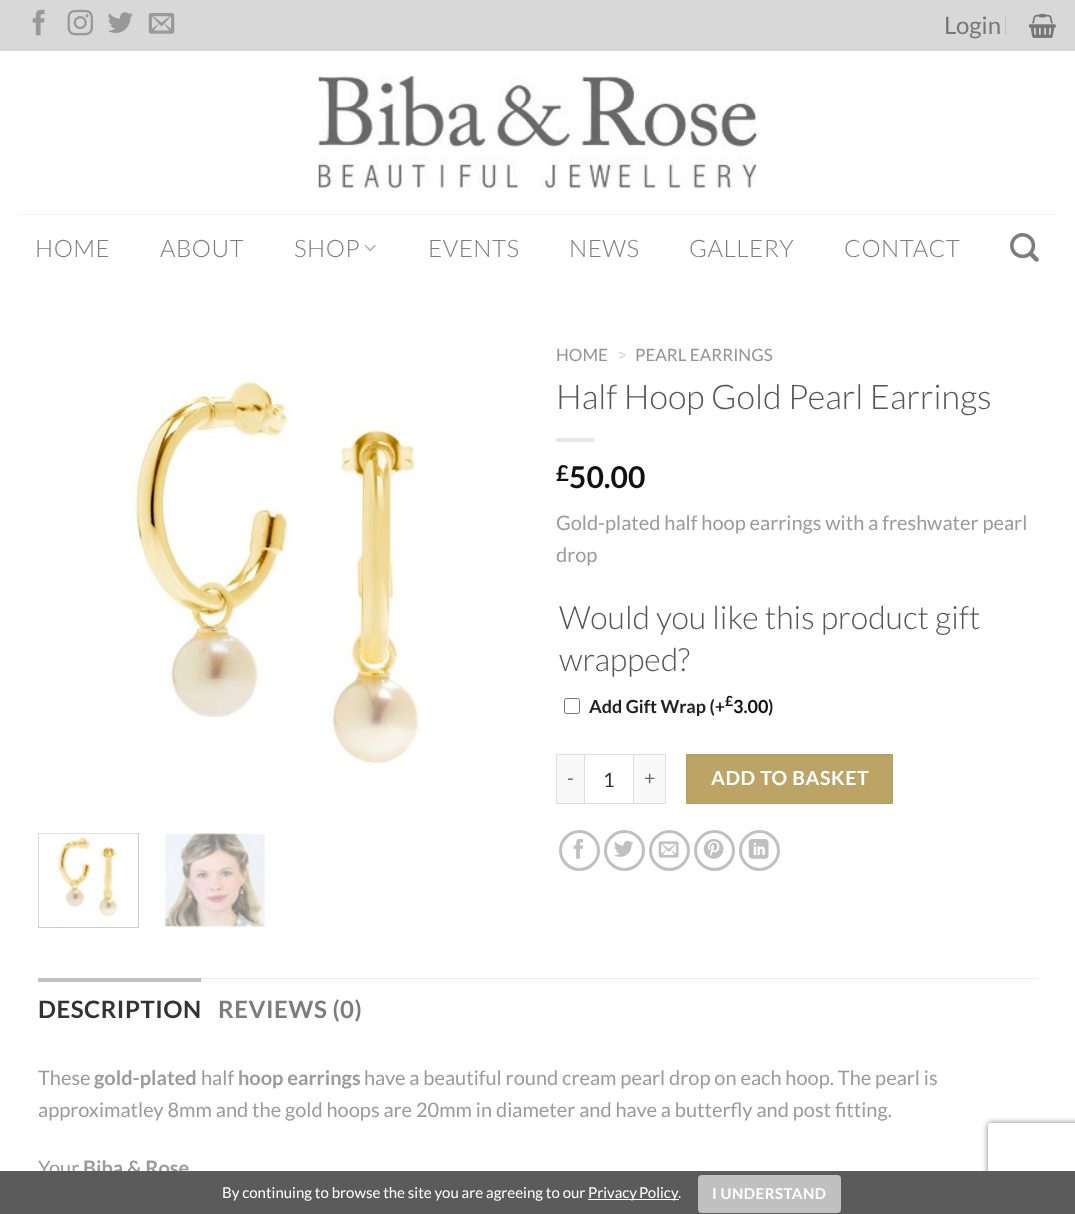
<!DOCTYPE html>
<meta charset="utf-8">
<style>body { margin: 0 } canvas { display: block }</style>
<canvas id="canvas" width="1075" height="1214"></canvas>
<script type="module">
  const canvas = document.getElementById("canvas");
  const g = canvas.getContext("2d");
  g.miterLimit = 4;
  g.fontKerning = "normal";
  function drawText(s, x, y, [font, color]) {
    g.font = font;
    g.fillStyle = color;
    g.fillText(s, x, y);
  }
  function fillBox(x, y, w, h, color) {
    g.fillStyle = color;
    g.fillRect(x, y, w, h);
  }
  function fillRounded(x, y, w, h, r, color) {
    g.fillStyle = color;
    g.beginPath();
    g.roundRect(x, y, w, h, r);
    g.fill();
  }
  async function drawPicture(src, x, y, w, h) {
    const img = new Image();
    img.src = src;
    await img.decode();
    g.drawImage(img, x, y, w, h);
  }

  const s1 = ["24px Lato", "#777777"];
  const s2 = ["300 24px Lato", "#7D7D7D"];
  const s3 = ["17px Lato", "#949494"];
  const s4 = ["300 17px Lato", "#B2B2B2"];
  const s5 = ["300 34px Lato", "#555555"];
  const s6 = ["bold 22px Lato", "#111111"];
  const s7 = ["bold 30px Lato", "#111111"];
  const s8 = ["20px Lato", "#9B9B9B"];
  const s9 = ["300 32px Lato", "#555555"];
  const s10 = ["bold 18px Lato", "#222222"];
  const s11 = ["bold 14px Lato", "#111111"];
  const s12 = ["bold 18px Lato", "#111111"];
  const s13 = ["19.5px Lato", "#666666"];
  const s14 = ["20px Lato", "#333333"];
  const s15 = ["bold 19.5px Lato", "#FFFFFF"];
  const s16 = ["bold 24px Lato", "#333333"];
  const s17 = ["bold 24px Lato", "#7D7D7D"];
  const s18 = ["bold 20px Lato", "#9B9B9B"];
  const s19 = ["15px Lato", "#FFFFFF"];
  const s20 = ["bold 15px Lato", "#FFFFFF"];

  fillBox(0, 0, 1075, 1214, "#FFFFFF");
  fillBox(0, 0, 1075, 51, "#D8D8D8");
  await drawPicture("pic1.png", 32, 9, 13, 27);
  await drawPicture("pic2.png", 67, 9, 26, 27);
  await drawPicture("pic3.png", 108, 12, 25, 21);
  await drawPicture("pic4.png", 148, 13, 27, 21);
  drawText("Login", 944, 34, s1);
  fillBox(1005, 16, 1, 19, "#C2C2C2");
  await drawPicture("pic5.png", 1028, 13, 29, 25);
  await drawPicture("pic6.png", 318, 76, 439, 112);
  fillBox(19, 214, 1037, 1, "#F5F5F5");
  g.letterSpacing = "0.5px";
  drawText("HOME", 35, 257, s2);
  drawText("ABOUT", 160, 257, s2);
  drawText("SHOP", 294, 257, s2);
  await drawPicture("pic7.png", 364, 244, 12, 8);
  drawText("EVENTS", 428, 257, s2);
  drawText("NEWS", 569, 257, s2);
  drawText("GALLERY", 689, 257, s2);
  drawText("CONTACT", 844, 257, s2);
  await drawPicture("pic8.png", 1010, 233, 29, 29);
  await drawPicture("pic9.png", 130, 377, 290, 389);
  g.strokeStyle = "#CCCCCC";
  g.strokeRect(38.5, 833.5, 100, 94);
  await drawPicture("pic10.png", 38, 833, 100, 93);
  await drawPicture("pic11.png", 164, 833, 101, 94);
  g.letterSpacing = "0px";
  drawText("HOME", 556, 361, s3);
  drawText(">", 617, 361, s4);
  drawText("PEARL EARRINGS", 635, 361, s3);
  drawText("Half Hoop Gold Pearl Earrings", 556, 409, s5);
  fillBox(556, 438, 38, 4, "#E6E6E6");
  drawText("£", 556, 481, s6);
  drawText("50.00", 569, 488, s7);
  drawText("Gold-plated half hoop earrings with a freshwater pearl", 556, 530, s8);
  drawText("drop", 556, 562, s8);
  drawText("Would you like this product gift", 559, 629, s9);
  drawText("wrapped?", 559, 671, s9);
  g.beginPath();
  g.roundRect(564.5, 698.5, 15, 15, 2);
  g.strokeStyle = "#767676";
  g.stroke();
  drawText("Add Gift Wrap (+", 589, 713, s10);
  drawText("£", 725, 706, s11);
  drawText("3.00", 733, 713, s12);
  drawText(")", 768, 713, s10);
  fillBox(557, 755, 27, 48, "#F9F9F9");
  fillBox(556, 754, 28, 1, "#DDDDDD");
  fillBox(556, 803, 28, 1, "#DDDDDD");
  fillBox(556, 754, 1, 50, "#DDDDDD");
  g.letterSpacing = "0.6px";
  drawText("-", 567, 785, s13);
  g.strokeStyle = "#DDDDDD";
  g.strokeRect(584.5, 754.5, 49, 49);
  g.letterSpacing = "0px";
  drawText("1", 603, 787, s14);
  fillBox(634, 755, 31, 48, "#F9F9F9");
  fillBox(634, 754, 32, 1, "#DDDDDD");
  fillBox(665, 754, 1, 50, "#DDDDDD");
  fillBox(634, 803, 32, 1, "#DDDDDD");
  g.letterSpacing = "0.6px";
  drawText("+", 644, 785, s13);
  g.fillStyle = "#BBA465";
  g.beginPath();
  g.rect(686.5, 754.5, 206, 49);
  g.fill();
  g.strokeStyle = "#B29C60";
  g.stroke();
  drawText("ADD TO BASKET", 711, 785, s15);
  g.beginPath();
  g.arc(579.5, 850.5, 19, 0, Math.PI * 2);
  g.strokeStyle = "#C0C0C0";
  g.lineWidth = 3;
  g.stroke();
  await drawPicture("pic12.png", 573, 838, 10, 21);
  g.beginPath();
  g.arc(624.5, 850.5, 19, 0, Math.PI * 2);
  g.stroke();
  await drawPicture("pic13.png", 614, 840, 20, 17);
  g.beginPath();
  g.arc(669.5, 850.5, 19, 0, Math.PI * 2);
  g.stroke();
  await drawPicture("pic14.png", 658, 841, 21, 17);
  g.beginPath();
  g.arc(714.5, 850.5, 19, 0, Math.PI * 2);
  g.stroke();
  await drawPicture("pic15.png", 703, 839, 21, 20);
  g.beginPath();
  g.arc(759.5, 850.5, 19, 0, Math.PI * 2);
  g.stroke();
  await drawPicture("pic16.png", 748, 838, 21, 21);
  fillBox(201, 978, 837, 1, "#ECECEC");
  fillBox(38, 978, 163, 4, "#C0C0C0");
  g.letterSpacing = "0.5px";
  drawText("DESCRIPTION", 38, 1018, s16);
  drawText("REVIEWS (0)", 218, 1018, s17);
  g.letterSpacing = "0px";
  drawText("These", 38, 1085, s8);
  drawText("gold-plated", 94, 1085, s18);
  drawText("half", 201, 1085, s8);
  drawText("hoop earrings", 238, 1085, s18);
  drawText("have a beautiful round cream pearl drop on each hoop. The pearl is", 364, 1085, s8);
  drawText("approximatley 8mm and the gold hoops are 20mm in diameter and have a butterfly and post fitting.", 38, 1117, s8);
  drawText("Your", 38, 1175, s8);
  drawText("Biba & Rose", 83, 1175, s18);
  g.save();
  g.beginPath();
  g.moveTo(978, 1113);
  g.lineTo(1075, 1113);
  g.lineTo(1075, 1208);
  g.lineTo(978, 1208);
  g.closePath();
  g.moveTo(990.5, 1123);
  g.lineTo(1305.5, 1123);
  g.bezierCurveTo(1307, 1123, 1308, 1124, 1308, 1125.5);
  g.lineTo(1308, 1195.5);
  g.bezierCurveTo(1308, 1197, 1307, 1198, 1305.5, 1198);
  g.lineTo(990.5, 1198);
  g.bezierCurveTo(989, 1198, 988, 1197, 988, 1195.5);
  g.lineTo(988, 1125.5);
  g.bezierCurveTo(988, 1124, 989, 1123, 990.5, 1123);
  g.closePath();
  g.clip("evenodd");
  g.fillStyle = "#808080";
  g.filter = "blur(3px)";
  g.beginPath();
  g.roundRect(988, 1123, 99, 75, 2.5);
  g.fill();
  g.filter = "none";
  g.restore();
  fillBox(0, 1171, 1075, 43, "#5B5B5B");
  drawText("By continuing to browse the site you are agreeing to our", 222, 1198, s19);
  fillBox(588, 1199, 91, 1, "#FFFFFF");
  g.wordSpacing = "-1px";
  drawText("Privacy Policy", 588, 1198, s19);
  g.wordSpacing = "0px";
  drawText(".", 678, 1198, s19);
  fillRounded(698, 1175, 143, 38, 4, "#C0C0C0");
  g.letterSpacing = "0.5px";
  drawText("I UNDERSTAND", 712, 1199, s20);
</script>
